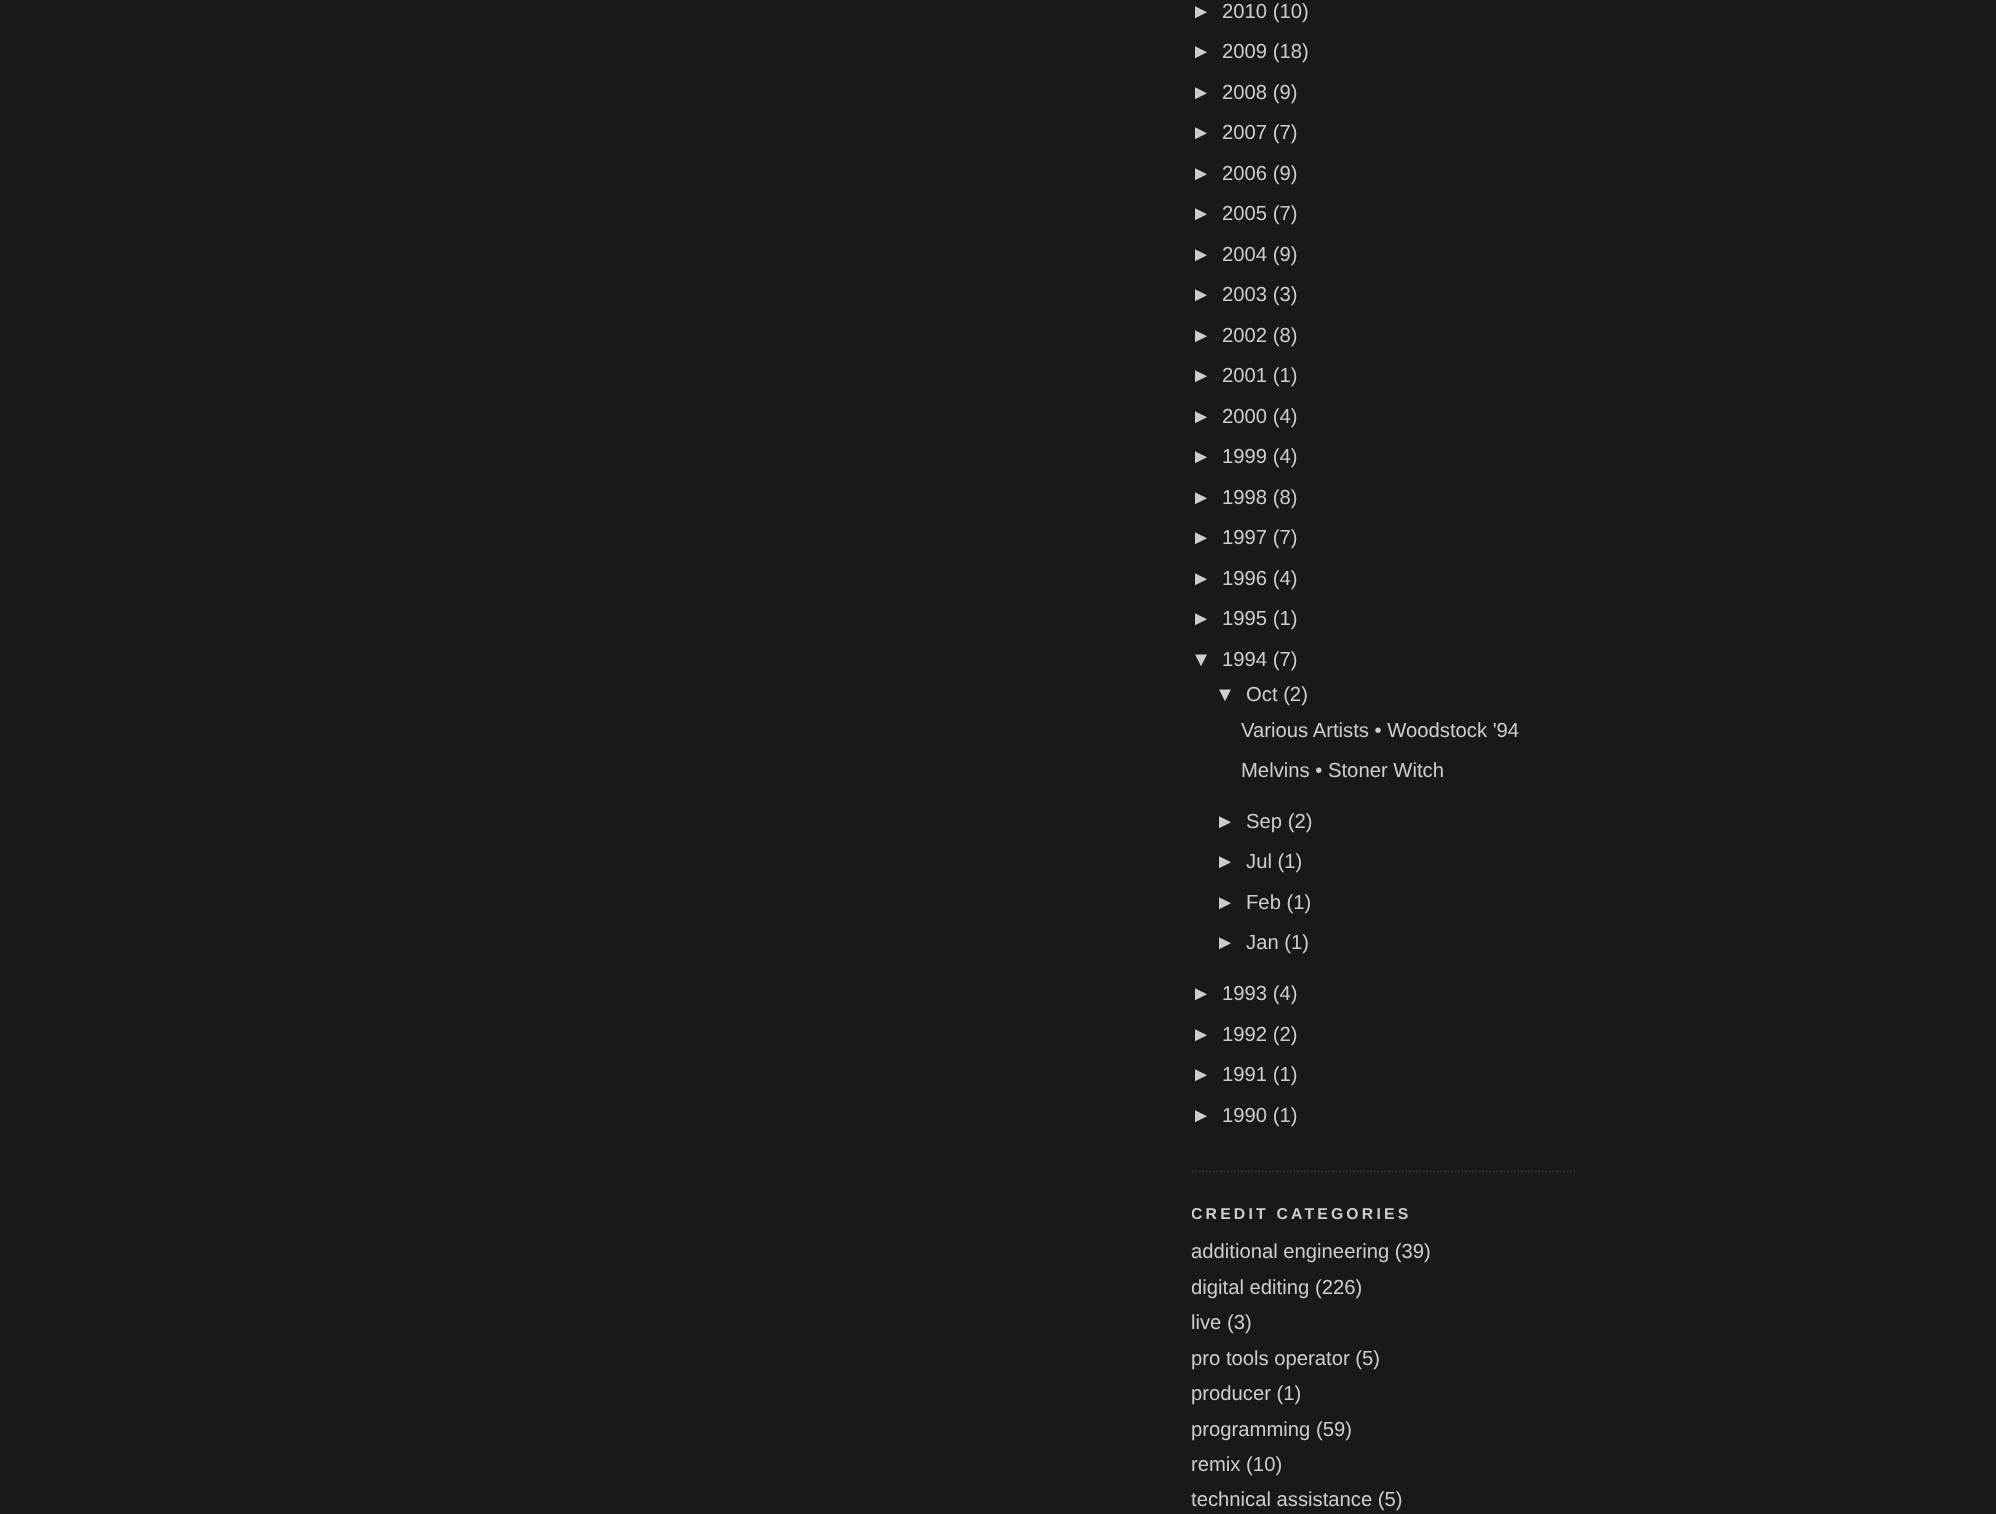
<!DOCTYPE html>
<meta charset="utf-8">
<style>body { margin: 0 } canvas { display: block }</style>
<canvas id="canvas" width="1996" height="1514"></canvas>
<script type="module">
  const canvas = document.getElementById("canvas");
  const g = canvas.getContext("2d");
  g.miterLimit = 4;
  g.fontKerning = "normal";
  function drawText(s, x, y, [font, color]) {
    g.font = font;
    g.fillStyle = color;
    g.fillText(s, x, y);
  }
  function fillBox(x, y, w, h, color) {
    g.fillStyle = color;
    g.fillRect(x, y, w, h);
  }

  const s1 = ["20.25px Liberation Sans", "#CCCCCC"];
  const s2 = ["bold 15.75px Liberation Sans", "#CCCCCC"];

  fillBox(0, 0, 1996, 1514, "#191919");
  g.beginPath();
  g.moveTo(1192, 1171.5);
  g.lineTo(1577, 1171.5);
  g.strokeStyle = "#333333";
  g.lineWidth = 1.8;
  g.setLineDash([1.75, 1.75]);
  g.stroke();
  drawText("►", 1191, 18, s1);
  drawText("2010 (10)", 1222, 18, s1);
  drawText("►", 1191, 58, s1);
  drawText("2009 (18)", 1222, 58, s1);
  drawText("►", 1191, 99, s1);
  drawText("2008 (9)", 1222, 99, s1);
  drawText("►", 1191, 139, s1);
  drawText("2007 (7)", 1222, 139, s1);
  drawText("►", 1191, 180, s1);
  drawText("2006 (9)", 1222, 180, s1);
  drawText("►", 1191, 220, s1);
  drawText("2005 (7)", 1222, 220, s1);
  drawText("►", 1191, 261, s1);
  drawText("2004 (9)", 1222, 261, s1);
  drawText("►", 1191, 301, s1);
  drawText("2003 (3)", 1222, 301, s1);
  drawText("►", 1191, 342, s1);
  drawText("2002 (8)", 1222, 342, s1);
  drawText("►", 1191, 382, s1);
  drawText("2001 (1)", 1222, 382, s1);
  drawText("►", 1191, 423, s1);
  drawText("2000 (4)", 1222, 423, s1);
  drawText("►", 1191, 463, s1);
  drawText("1999 (4)", 1222, 463, s1);
  drawText("►", 1191, 504, s1);
  drawText("1998 (8)", 1222, 504, s1);
  drawText("►", 1191, 544, s1);
  drawText("1997 (7)", 1222, 544, s1);
  drawText("►", 1191, 585, s1);
  drawText("1996 (4)", 1222, 585, s1);
  drawText("►", 1191, 625, s1);
  drawText("1995 (1)", 1222, 625, s1);
  drawText("▼", 1191, 666, s1);
  drawText("1994 (7)", 1222, 666, s1);
  drawText("▼", 1215, 701, s1);
  drawText("Oct (2)", 1246, 701, s1);
  drawText("Various Artists • Woodstock '94", 1241, 737, s1);
  drawText("Melvins • Stoner Witch", 1241, 777, s1);
  drawText("►", 1215, 828, s1);
  drawText("Sep (2)", 1246, 828, s1);
  drawText("►", 1215, 868, s1);
  drawText("Jul (1)", 1246, 868, s1);
  drawText("►", 1215, 909, s1);
  drawText("Feb (1)", 1246, 909, s1);
  drawText("►", 1215, 949, s1);
  drawText("Jan (1)", 1246, 949, s1);
  drawText("►", 1191, 1000, s1);
  drawText("1993 (4)", 1222, 1000, s1);
  drawText("►", 1191, 1041, s1);
  drawText("1992 (2)", 1222, 1041, s1);
  drawText("►", 1191, 1081, s1);
  drawText("1991 (1)", 1222, 1081, s1);
  drawText("►", 1191, 1122, s1);
  drawText("1990 (1)", 1222, 1122, s1);
  g.save();
  g.beginPath();
  g.rect(1192, 0, 385, 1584);
  g.clip();
  g.letterSpacing = "3.2px";
  drawText("CREDIT CATEGORIES", 1191, 1219, s2);
  g.restore();
  drawText("additional engineering (39)", 1191, 1258, s1);
  g.save();
  g.beginPath();
  g.rect(1192, 0, 385, 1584);
  g.clip();
  drawText("digital editing", 1191, 1294, s1);
  g.restore();
  drawText("(226)", 1315, 1294, s1);
  drawText("live (3)", 1191, 1329, s1);
  drawText("pro tools operator (5)", 1191, 1365, s1);
  drawText("producer (1)", 1191, 1400, s1);
  drawText("programming (59)", 1191, 1436, s1);
  drawText("remix (10)", 1191, 1471, s1);
  drawText("technical assistance (5)", 1191, 1506, s1);
</script>
